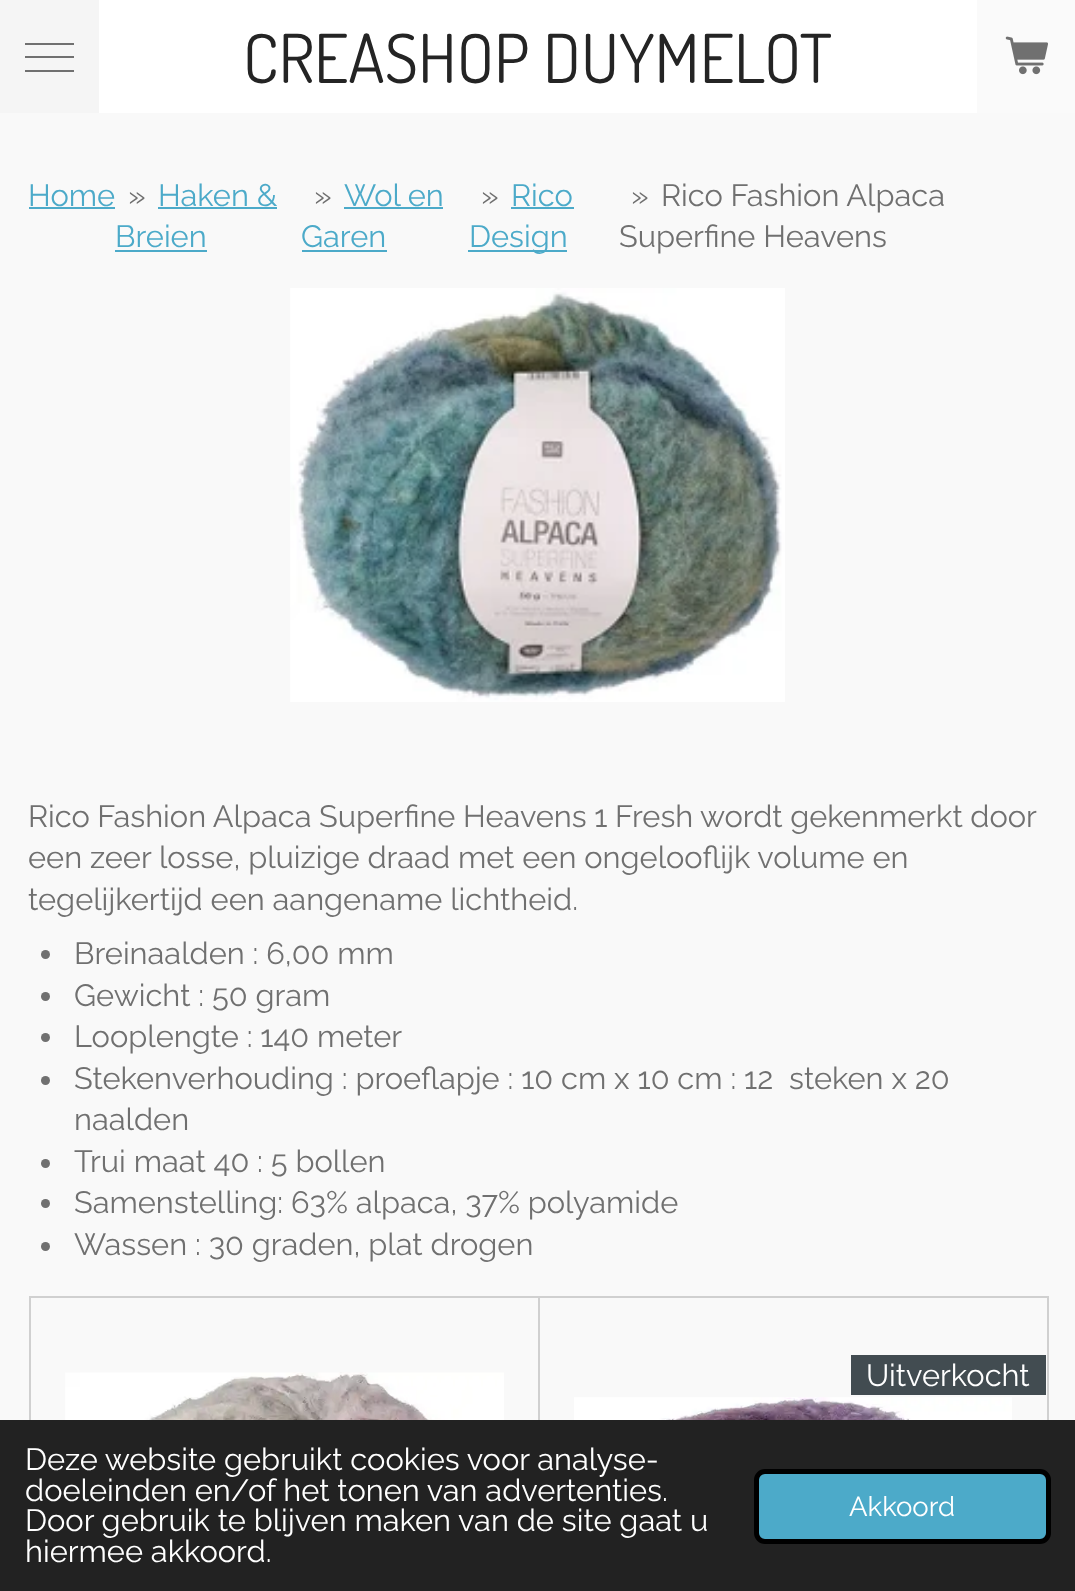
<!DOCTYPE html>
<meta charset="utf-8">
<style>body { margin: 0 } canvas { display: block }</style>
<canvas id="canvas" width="1075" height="1591"></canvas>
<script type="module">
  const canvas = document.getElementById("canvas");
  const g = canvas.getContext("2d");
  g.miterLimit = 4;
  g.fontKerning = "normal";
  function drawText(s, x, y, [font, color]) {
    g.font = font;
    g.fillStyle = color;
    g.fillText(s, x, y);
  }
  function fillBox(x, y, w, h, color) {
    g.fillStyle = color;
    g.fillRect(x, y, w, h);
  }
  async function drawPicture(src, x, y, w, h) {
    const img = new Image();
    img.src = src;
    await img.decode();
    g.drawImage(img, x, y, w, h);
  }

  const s1 = ["67.5px Dosis", "#242424"];
  const s2 = ["30.8px Raleway", "#4CAAC9"];
  const s3 = ["30.8px Raleway", "#707070"];
  const s4 = ["30.8px Raleway", "#FFFFFF"];
  const s5 = ["27.5px Raleway", "#FFFFFF"];

  fillBox(0, 0, 1075, 1591, "#FFFFFF");
  fillBox(0, 0, 99, 113, "#F5F5F5");
  fillBox(25, 56, 49, 2, "#707070");
  fillBox(25, 43, 49, 2, "#707070");
  fillBox(25, 70, 49, 2, "#707070");
  drawText("CREASHOP DUYMELOT", 243, 83, s1);
  fillBox(977, 0, 98, 113, "#FAFAFA");
  await drawPicture("pic1.png", 1005, 36, 43, 39);
  fillBox(0, 113, 1075, 1307, "#F9F9F9");
  drawText("Home", 28, 206, s2);
  fillBox(29, 207, 86, 2, "#4CAAC9");
  drawText("»", 128, 206, s3);
  drawText("Haken &", 158, 206, s2);
  fillBox(158, 207, 119, 2, "#4CAAC9");
  drawText("Breien", 115, 247, s2);
  fillBox(115, 250, 92, 2, "#4CAAC9");
  drawText("»", 314, 206, s3);
  drawText("Wol en", 344, 206, s2);
  fillBox(344, 207, 99, 2, "#4CAAC9");
  drawText("Garen", 301, 247, s2);
  fillBox(302, 250, 85, 2, "#4CAAC9");
  drawText("»", 481, 206, s3);
  drawText("Rico", 511, 206, s2);
  fillBox(511, 207, 63, 2, "#4CAAC9");
  fillBox(468, 250, 99, 2, "#4CAAC9");
  drawText("Design", 469, 247, s2);
  drawText("»", 631, 206, s3);
  drawText("Rico Fashion Alpaca", 661, 206, s3);
  drawText("Superfine Heavens", 619, 247, s3);
  await drawPicture("pic2.png", 290, 288, 495, 414);
  g.wordSpacing = "-0.25px";
  drawText("Rico Fashion Alpaca Superfine Heavens 1 Fresh wordt gekenmerkt door", 28, 827, s3);
  g.wordSpacing = "0px";
  drawText("een zeer losse, pluizige draad met een ongelooflijk volume en", 28, 868, s3);
  drawText("tegelijkertijd een aangename lichtheid.", 28, 910, s3);
  g.beginPath();
  g.arc(45.5, 954.5, 4.5, 0, Math.PI * 2);
  g.fill();
  drawText("Breinaalden : 6,00 mm", 74, 964, s3);
  g.beginPath();
  g.arc(45.5, 996.5, 4.5, 0, Math.PI * 2);
  g.fill();
  drawText("Gewicht : 50 gram", 74, 1006, s3);
  g.beginPath();
  g.arc(45.5, 1037.5, 4.5, 0, Math.PI * 2);
  g.fill();
  drawText("Looplengte : 140 meter", 74, 1047, s3);
  g.beginPath();
  g.arc(45.5, 1080.5, 4.5, 0, Math.PI * 2);
  g.fill();
  drawText("Stekenverhouding : proeflapje : 10 cm x 10 cm : 12  steken x 20", 74, 1089, s3);
  drawText("naalden", 74, 1130, s3);
  g.beginPath();
  g.arc(45.5, 1163.5, 4.5, 0, Math.PI * 2);
  g.fill();
  drawText("Trui maat 40 : 5 bollen", 74, 1172, s3);
  g.beginPath();
  g.arc(45.5, 1203.5, 4.5, 0, Math.PI * 2);
  g.fill();
  drawText("Samenstelling: 63% alpaca, 37% polyamide", 74, 1213, s3);
  g.beginPath();
  g.arc(45.5, 1246.5, 4.5, 0, Math.PI * 2);
  g.fill();
  drawText("Wassen : 30 graden, plat drogen", 74, 1255, s3);
  g.strokeStyle = "#D0D0D0";
  g.lineWidth = 2;
  g.strokeRect(30, 1297, 509, 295);
  await drawPicture("pic3.png", 65, 1372, 439, 48);
  g.strokeRect(539, 1297, 509, 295);
  fillBox(851, 1355, 195, 40, "#424C51");
  drawText("Uitverkocht", 866, 1386, s4);
  await drawPicture("pic4.png", 574, 1397, 438, 23);
  fillBox(0, 1420, 1075, 171, "#222222");
  drawText("Deze website gebruikt cookies voor analyse-", 25, 1470, s4);
  drawText("doeleinden en/of het tonen van advertenties.", 25, 1501, s4);
  drawText("Door gebruik te blijven maken van de site gaat u", 25, 1531, s4);
  drawText("hiermee akkoord.", 25, 1562, s4);
  g.fillStyle = "#4CAAC9";
  g.beginPath();
  g.roundRect(756.5, 1471.5, 292, 70, 8.5);
  g.fill();
  g.strokeStyle = "#000000";
  g.lineWidth = 5;
  g.stroke();
  drawText("Akkoord", 849, 1516, s5);
</script>
